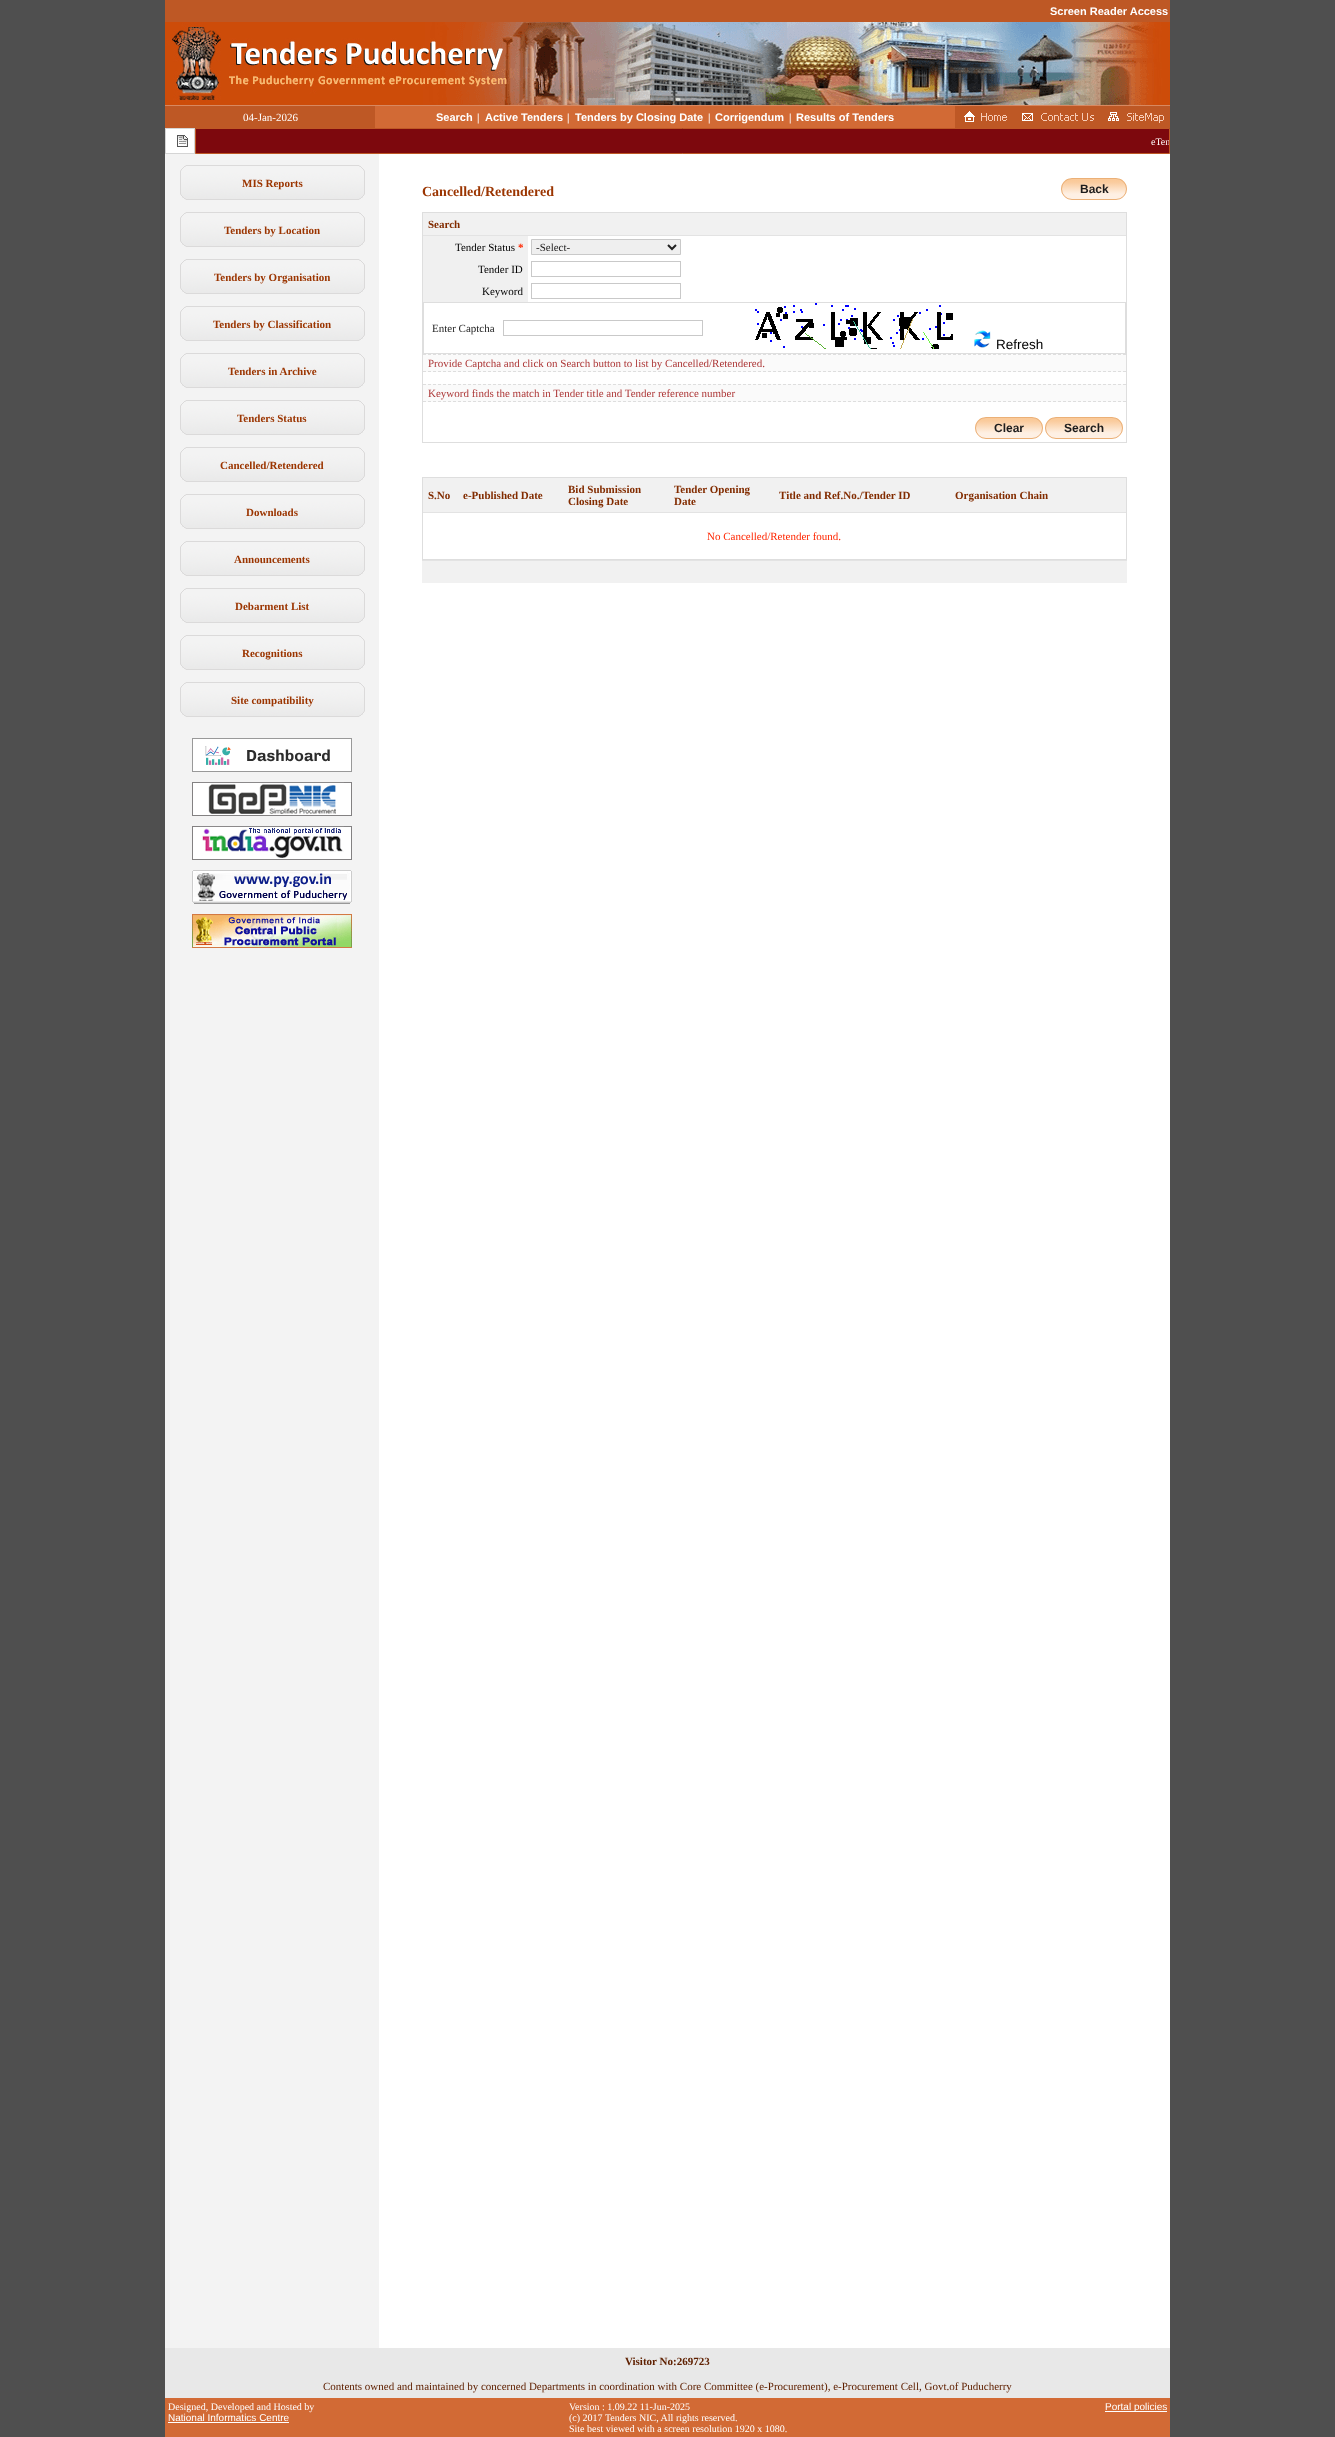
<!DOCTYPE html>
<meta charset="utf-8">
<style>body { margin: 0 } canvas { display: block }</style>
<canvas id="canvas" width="1335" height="2437"></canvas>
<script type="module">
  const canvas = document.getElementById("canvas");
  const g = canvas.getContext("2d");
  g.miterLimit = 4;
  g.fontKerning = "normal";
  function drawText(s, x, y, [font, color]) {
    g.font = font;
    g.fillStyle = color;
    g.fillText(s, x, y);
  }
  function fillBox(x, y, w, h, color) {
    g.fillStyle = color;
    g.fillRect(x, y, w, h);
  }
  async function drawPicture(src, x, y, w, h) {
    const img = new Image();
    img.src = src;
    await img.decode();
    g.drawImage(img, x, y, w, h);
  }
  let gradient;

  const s1 = ["bold 11px Liberation Sans", "#FFFFFF"];
  const s2 = ["11px Liberation Serif", "#FFFFFF"];
  const s3 = ["bold 11px Liberation Serif", "#FFFFFF"];
  const s4 = ["10px Liberation Serif", "#FFFFFF"];
  const s5 = ["bold 11px Liberation Serif", "#9B3501"];
  const s6 = ["bold 14px Liberation Serif", "#9B3501"];
  const s7 = ["bold 12px Liberation Sans", "#1E1D1D"];
  const s8 = ["bold 11px Liberation Serif", "#822C00"];
  const s9 = ["11px Liberation Serif", "#000000"];
  const s10 = ["bold 11px Liberation Serif", "#FF2600"];
  const s11 = ["11px Liberation Serif", "#1E1D1D"];
  const s12 = ["11px Liberation Serif", "#252525"];
  const s13 = ["13.5px Liberation Sans", "#000000"];
  const s14 = ["11px Liberation Serif", "#AD3737"];
  const s15 = ["11px Liberation Serif", "#FF2600"];
  const s16 = ["bold 11px Liberation Serif", "#5F2000"];
  const s17 = ["11px Liberation Serif", "#5F2000"];
  const s18 = ["10px Liberation Sans", "#FFFFFF"];

  fillBox(0, 0, 1335, 2437, "#4F4F4F");
  fillBox(166, 129, 1004, 2219, "#FFFFFF");
  fillBox(165, 0, 1005, 22, "#BE5825");
  drawText("Screen Reader Access", 1050, 15, s1);
  await drawPicture("pic1.png", 165, 22, 1005, 83);
  fillBox(165, 105, 1005, 1, "#D88860");
  fillBox(165, 106, 210, 22, "#BE5825");
  drawText("04-Jan-2026", 243, 121, s2);
  fillBox(375, 106, 580, 22, "#D26A35");
  drawText("Search", 436, 121, s1);
  drawText("|", 477, 121, s3);
  drawText("Active Tenders", 485, 121, s1);
  drawText("|", 567, 121, s3);
  drawText("Tenders by Closing Date", 575, 121, s1);
  drawText("|", 708, 121, s3);
  drawText("Corrigendum", 715, 121, s1);
  drawText("|", 789, 121, s3);
  drawText("Results of Tenders", 796, 121, s1);
  fillBox(955, 106, 215, 22, "#BE5825");
  await drawPicture("pic2.png", 964, 111, 43, 11);
  await drawPicture("pic3.png", 1022, 113, 72, 8);
  await drawPicture("pic4.png", 1108, 112, 56, 11);
  g.strokeStyle = "#D5D5D5";
  g.strokeRect(165.5, 128.5, 29, 25);
  await drawPicture("pic5.png", 177, 135, 11, 12);
  g.fillStyle = "#7D080D";
  g.beginPath();
  g.rect(195.5, 128.5, 974, 25);
  g.fill();
  g.strokeStyle = "#BE5825";
  g.stroke();
  g.save();
  g.beginPath();
  g.rect(196, 136, 973, 11);
  g.clip();
  drawText("eTen", 1151, 145, s4);
  g.restore();
  fillBox(165, 154, 214, 2194, "#F3F3F3");
  await drawPicture("pic6.png", 180, 165, 185, 35);
  drawText("MIS Reports", 242, 187, s5);
  await drawPicture("pic6.png", 180, 212, 185, 35);
  drawText("Tenders by Location", 224, 234, s5);
  await drawPicture("pic6.png", 180, 259, 185, 35);
  drawText("Tenders by Organisation", 214, 281, s5);
  await drawPicture("pic6.png", 180, 306, 185, 35);
  drawText("Tenders by Classification", 213, 328, s5);
  await drawPicture("pic6.png", 180, 353, 185, 35);
  drawText("Tenders in Archive", 228, 375, s5);
  await drawPicture("pic6.png", 180, 400, 185, 35);
  drawText("Tenders Status", 237, 422, s5);
  await drawPicture("pic6.png", 180, 447, 185, 35);
  drawText("Cancelled/Retendered", 220, 469, s5);
  await drawPicture("pic6.png", 180, 494, 185, 35);
  drawText("Downloads", 246, 516, s5);
  await drawPicture("pic6.png", 180, 541, 185, 35);
  drawText("Announcements", 234, 563, s5);
  await drawPicture("pic6.png", 180, 588, 185, 35);
  drawText("Debarment List", 235, 610, s5);
  await drawPicture("pic6.png", 180, 635, 185, 35);
  drawText("Recognitions", 242, 657, s5);
  await drawPicture("pic6.png", 180, 682, 185, 35);
  drawText("Site compatibility", 231, 704, s5);
  await drawPicture("pic7.png", 192, 738, 160, 34);
  await drawPicture("pic8.png", 192, 782, 160, 34);
  await drawPicture("pic9.png", 192, 826, 160, 34);
  await drawPicture("pic10.png", 192, 870, 160, 34);
  await drawPicture("pic11.png", 192, 914, 160, 34);
  drawText("Cancelled/Retendered", 422, 196, s6);
  g.save();
  g.beginPath();
  g.roundRect(1061, 178, 66, 22, 11);
  g.clip();
  gradient = g.createLinearGradient(1094, 179, 1094, 199);
  gradient.addColorStop(0, "#FAC999");
  gradient.addColorStop(0.1, "#FACA9A");
  gradient.addColorStop(0.19, "#FACDA1");
  gradient.addColorStop(0.71, "#FEEEDF");
  gradient.addColorStop(0.78, "#FEF0E4");
  gradient.addColorStop(1, "#FEF0E4");
  g.fillStyle = gradient;
  g.fillRect(1061, 179, 66, 20);
  g.restore();
  g.beginPath();
  g.roundRect(1061.5, 178.5, 65, 21, 10.5);
  g.strokeStyle = "#EBB077";
  g.stroke();
  drawText("Back", 1080, 193, s7);
  g.strokeStyle = "#DEDEDE";
  g.strokeRect(422.5, 212.5, 704, 230);
  fillBox(423, 213, 703, 22, "#F1F1F1");
  fillBox(423, 235, 703, 1, "#E3E3E3");
  drawText("Search", 428, 228, s8);
  fillBox(423, 236, 105, 66, "#F0F0F0");
  drawText("Tender Status", 455, 251, s9);
  drawText("*", 518, 251, s10);
  g.fillStyle = "#EFEFEF";
  g.beginPath();
  g.rect(531.5, 239.5, 149, 15);
  g.fill();
  g.strokeStyle = "#C9C9C9";
  g.stroke();
  g.beginPath();
  g.moveTo(668, 245);
  g.lineTo(672, 249);
  g.lineTo(676, 245);
  g.strokeStyle = "#212121";
  g.lineWidth = 2;
  g.stroke();
  drawText("-Select-", 536, 251, s11);
  drawText("Tender ID", 478, 273, s9);
  g.strokeStyle = "#C9C9C9";
  g.lineWidth = 1;
  g.strokeRect(531.5, 261.5, 149, 15);
  drawText("Keyword", 482, 295, s9);
  g.strokeRect(531.5, 283.5, 149, 15);
  g.strokeStyle = "#DEDEDE";
  g.strokeRect(423.5, 302.5, 702, 51);
  drawText("Enter Captcha", 432, 332, s12);
  g.strokeStyle = "#C9C9C9";
  g.strokeRect(503.5, 320.5, 199, 15);
  await drawPicture("pic12.png", 755, 303, 198, 46);
  await drawPicture("pic13.png", 974, 330, 17, 18);
  drawText("Refresh", 996, 349, s13);
  fillBox(423, 354, 703, 18, "#FAFAFA");
  g.beginPath();
  g.moveTo(423, 354.5);
  g.lineTo(1126, 354.5);
  g.strokeStyle = "#DEDEDE";
  g.setLineDash([3, 2]);
  g.stroke();
  g.beginPath();
  g.moveTo(423, 371.5);
  g.lineTo(1126, 371.5);
  g.stroke();
  drawText("Provide Captcha and click on Search button to list by Cancelled/Retendered.", 428, 367, s14);
  fillBox(423, 384, 703, 18, "#FAFAFA");
  g.beginPath();
  g.moveTo(423, 384.5);
  g.lineTo(1126, 384.5);
  g.stroke();
  g.beginPath();
  g.moveTo(423, 401.5);
  g.lineTo(1126, 401.5);
  g.stroke();
  drawText("Keyword finds the match in Tender title and Tender reference number", 428, 397, s14);
  g.save();
  g.beginPath();
  g.roundRect(975, 417, 68, 22, 11);
  g.clip();
  gradient = g.createLinearGradient(1009, 418, 1009, 438);
  gradient.addColorStop(0, "#FAC999");
  gradient.addColorStop(0.1, "#FACA9A");
  gradient.addColorStop(0.19, "#FACDA1");
  gradient.addColorStop(0.71, "#FEEEDF");
  gradient.addColorStop(0.78, "#FEF0E4");
  gradient.addColorStop(1, "#FEF0E4");
  g.fillStyle = gradient;
  g.fillRect(975, 418, 68, 20);
  g.restore();
  g.beginPath();
  g.roundRect(975.5, 417.5, 67, 21, 10.5);
  g.strokeStyle = "#EBB077";
  g.setLineDash([]);
  g.stroke();
  drawText("Clear", 994, 432, s7);
  g.save();
  g.beginPath();
  g.roundRect(1045, 417, 78, 22, 11);
  g.clip();
  gradient = g.createLinearGradient(1084, 418, 1084, 438);
  gradient.addColorStop(0, "#FAC999");
  gradient.addColorStop(0.1, "#FACA9A");
  gradient.addColorStop(0.19, "#FACDA1");
  gradient.addColorStop(0.71, "#FEEEDF");
  gradient.addColorStop(0.78, "#FEF0E4");
  gradient.addColorStop(1, "#FEF0E4");
  g.fillStyle = gradient;
  g.fillRect(1045, 418, 78, 20);
  g.restore();
  g.beginPath();
  g.roundRect(1045.5, 417.5, 77, 21, 10.5);
  g.stroke();
  drawText("Search", 1064, 432, s7);
  g.strokeStyle = "#DEDEDE";
  g.strokeRect(422.5, 477.5, 704, 82);
  fillBox(423, 478, 703, 34, "#F1F1F1");
  fillBox(423, 512, 703, 1, "#E3E3E3");
  drawText("S.No", 428, 499, s8);
  drawText("e-Published Date", 463, 499, s8);
  drawText("Bid Submission", 568, 493, s8);
  drawText("Closing Date", 568, 505, s8);
  drawText("Tender Opening", 674, 493, s8);
  drawText("Date", 674, 505, s8);
  drawText("Title and Ref.No./Tender ID", 779, 499, s8);
  drawText("Organisation Chain", 955, 499, s8);
  drawText("No Cancelled/Retender found.", 707, 540, s15);
  fillBox(422, 561, 705, 22, "#F1F1F1");
  fillBox(422, 560, 705, 1, "#E3E3E3");
  fillBox(165, 2348, 1005, 50, "#E8E8E8");
  drawText("Visitor No:269723", 625, 2365, s16);
  drawText("Contents owned and maintained by concerned Departments in coordination with Core Committee (e-Procurement), e-Procurement Cell, Govt.of Puducherry", 323, 2390, s17);
  fillBox(165, 2398, 1005, 39, "#D26A35");
  drawText("Designed, Developed and Hosted by", 168, 2410, s4);
  drawText("National Informatics Centre", 168, 2421, s18);
  fillBox(168, 2422, 121, 1, "#FFFFFF");
  drawText("Version : 1.09.22 11-Jun-2025", 569, 2410, s4);
  drawText("(c) 2017 Tenders NIC, All rights reserved.", 569, 2421, s4);
  drawText("Site best viewed with a screen resolution 1920 x 1080.", 569, 2432, s4);
  fillBox(1105, 2411, 62, 1, "#FFFFFF");
  drawText("Portal policies", 1105, 2410, s18);
</script>
